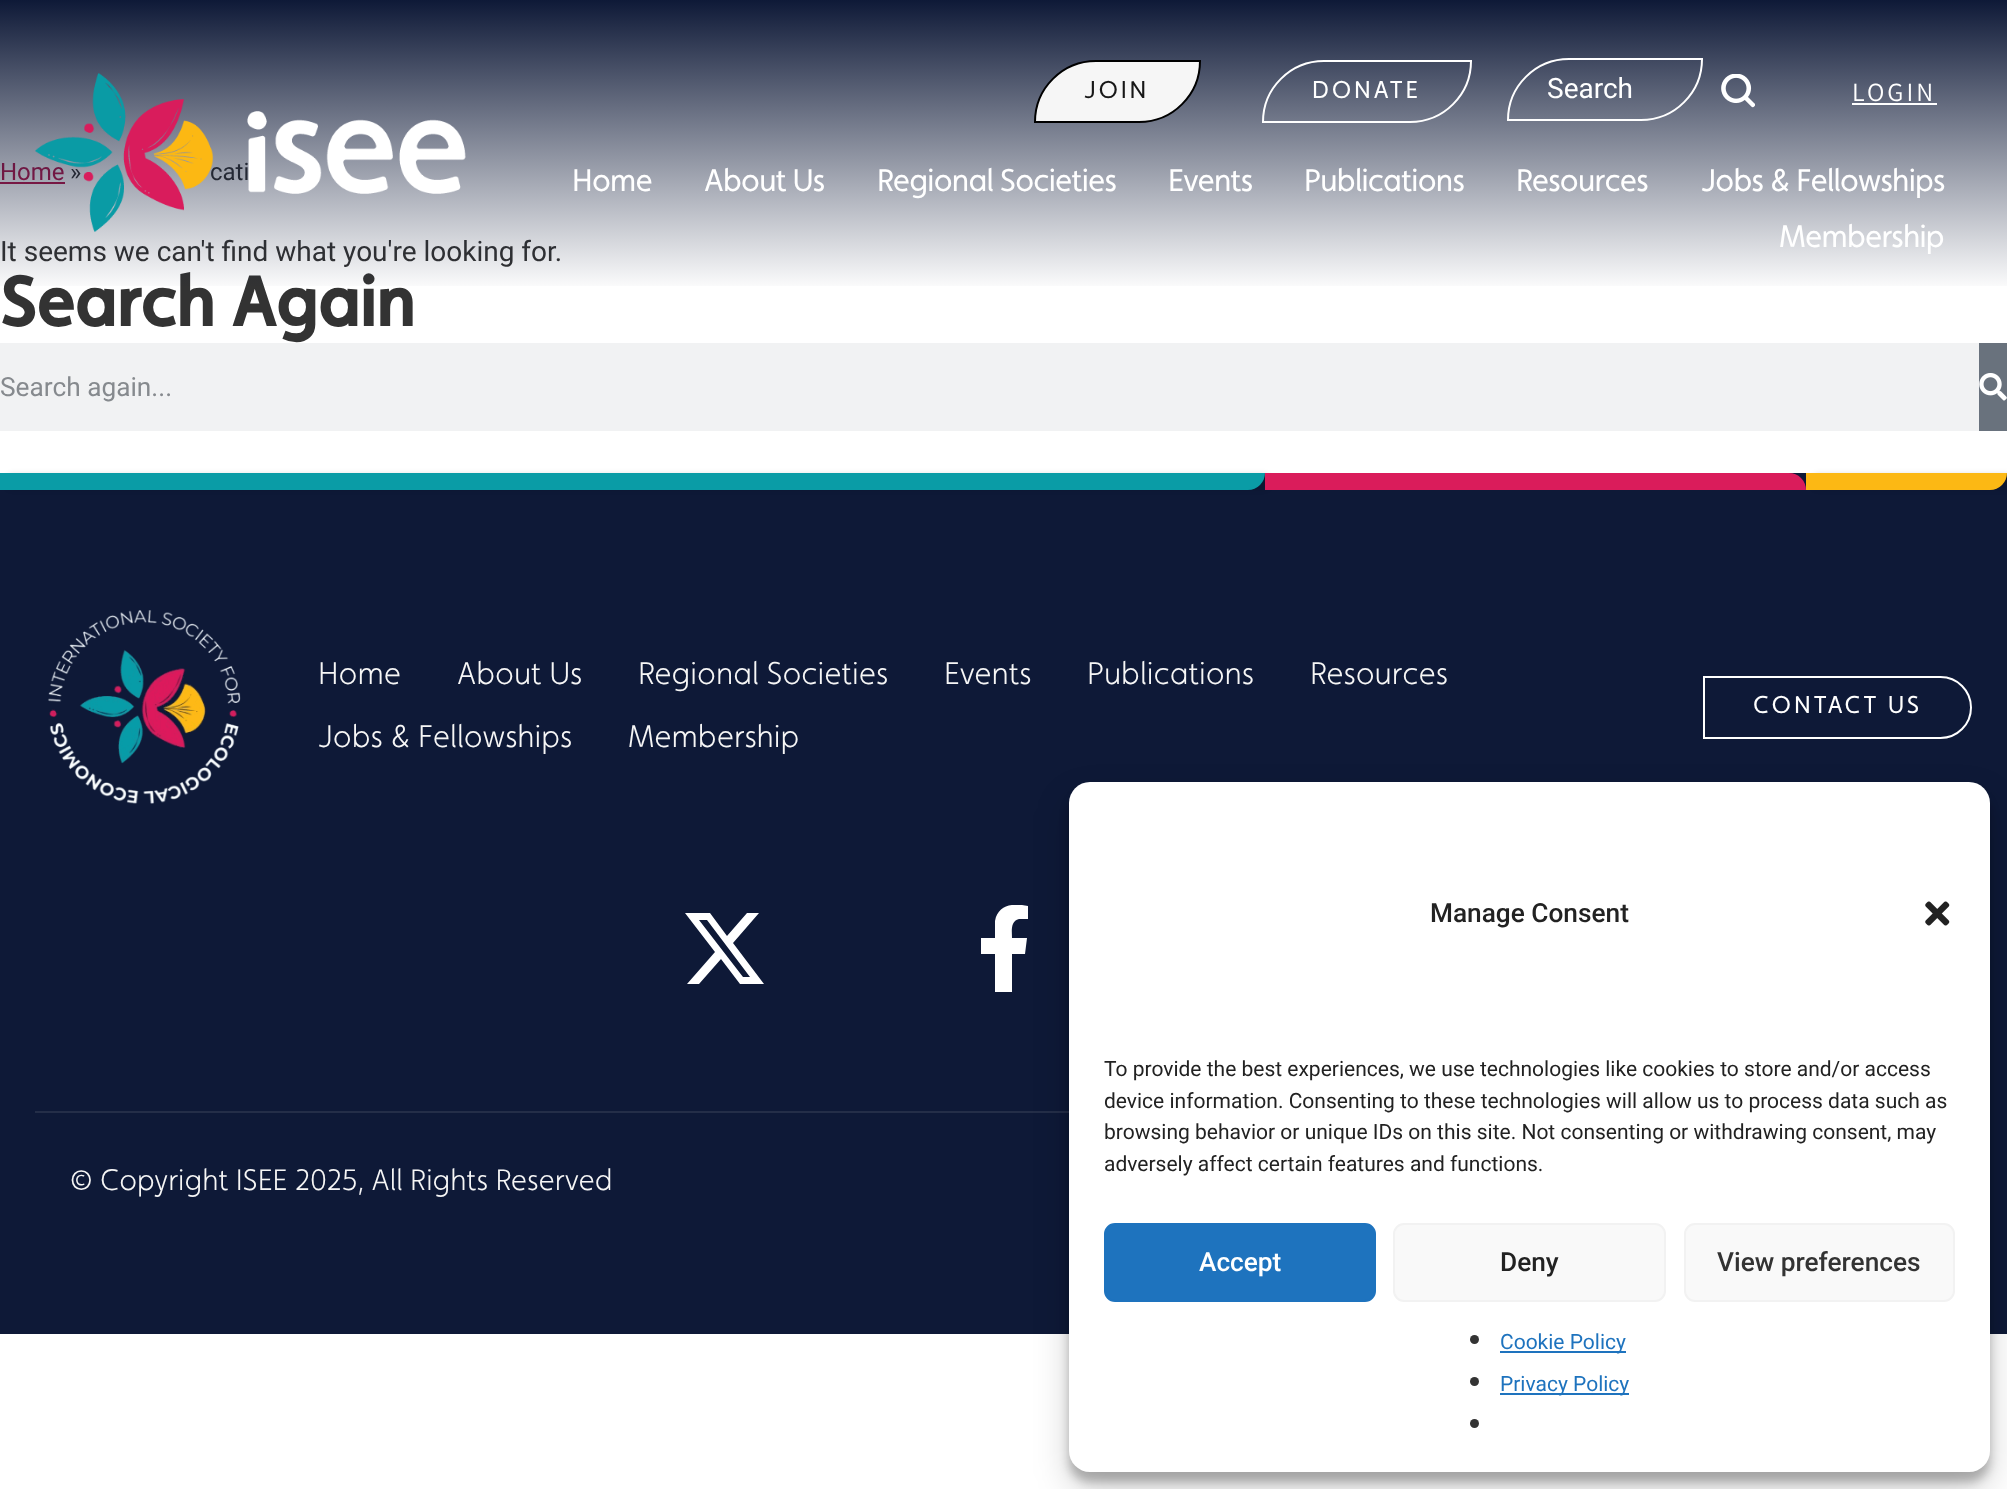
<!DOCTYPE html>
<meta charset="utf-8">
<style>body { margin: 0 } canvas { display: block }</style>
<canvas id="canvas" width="2007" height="1489"></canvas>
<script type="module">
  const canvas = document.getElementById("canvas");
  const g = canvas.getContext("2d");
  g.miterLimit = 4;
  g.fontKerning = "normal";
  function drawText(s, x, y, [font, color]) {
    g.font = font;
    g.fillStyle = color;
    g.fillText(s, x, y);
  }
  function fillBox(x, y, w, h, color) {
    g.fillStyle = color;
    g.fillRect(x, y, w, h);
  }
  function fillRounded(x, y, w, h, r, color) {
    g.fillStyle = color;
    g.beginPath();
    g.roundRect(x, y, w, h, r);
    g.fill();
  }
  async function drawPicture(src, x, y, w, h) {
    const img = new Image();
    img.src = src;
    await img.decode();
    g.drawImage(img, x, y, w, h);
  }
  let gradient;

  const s1 = ["24px Roboto", "#B5174C"];
  const s2 = ["24px Roboto", "#333333"];
  const s3 = ["28px Roboto", "#333333"];
  const s4 = ["bold 70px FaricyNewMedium", "#333333"];
  const s5 = ["26.25px Roboto", "#868A8E"];
  const s6 = ["24.5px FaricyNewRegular", "#171717"];
  const s7 = ["24.5px FaricyNewRegular", "#FFFFFF"];
  const s8 = ["28px Roboto", "#FFFFFF"];
  const s9 = ["26.25px Assistant", "#FFFFFF"];
  const s10 = ["31.5px FaricyNewRegular", "#FFFFFF"];
  const s11 = ["300 31.5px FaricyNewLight", "#F6F6F6"];
  const s12 = ["300 29.75px FaricyNewLight", "#F6F6F6"];
  const s13 = ["500 26.25px Roboto", "#222222"];
  const s14 = ["21px Roboto", "#222222"];
  const s15 = ["500 26.25px Roboto", "#FFFFFF"];
  const s16 = ["500 26.25px Roboto", "#333333"];
  const s17 = ["21px Roboto", "#1E73BE"];

  fillBox(0, 0, 2007, 1489, "#FFFFFF");
  drawText("Home", 0, 180, s1);
  fillBox(0, 182, 65, 2, "#B5174C");
  drawText("»", 70, 180, s2);
  drawText("cati", 210, 180, s2);
  drawText("It seems we can't find what you're looking for.", 0, 261, s3);
  drawText("Search Again", 0, 326, s4);
  fillBox(0, 343, 1979, 88, "#F1F2F3");
  drawText("Search again...", 0, 396, s5);
  fillBox(1979, 343, 28, 88, "#69727D");
  await drawPicture("pic1.png", 1979, 373, 28, 28);
  gradient = g.createLinearGradient(1004, 0, 1004, 292);
  gradient.addColorStop(0, "#0E1937");
  gradient.addColorStop(1, "rgba(14, 25, 55, 0)");
  g.fillStyle = gradient;
  g.fillRect(0, 0, 2007, 286);
  await drawPicture("pic2.png", 35, 73, 431, 159);
  g.fillStyle = "#F6F6F6";
  g.beginPath();
  g.roundRect(1035, 61, 165, 61, [62, 0, 62, 0]);
  g.fill();
  g.strokeStyle = "#000000";
  g.lineWidth = 2;
  g.stroke();
  g.letterSpacing = "2.75px";
  drawText("JOIN", 1084, 98, s6);
  g.beginPath();
  g.roundRect(1263, 61, 208, 61, [62, 0, 62, 0]);
  g.strokeStyle = "#FFFFFF";
  g.stroke();
  drawText("DONATE", 1312, 98, s7);
  g.beginPath();
  g.roundRect(1508, 59, 194, 61, [62, 0, 62, 0]);
  g.stroke();
  g.letterSpacing = "0px";
  drawText("Search", 1547, 98, s8);
  await drawPicture("pic3.png", 1721, 74, 34, 34);
  g.letterSpacing = "3px";
  drawText("LOGIN", 1852, 101, s9);
  fillBox(1852, 103, 85, 2, "#FFFFFF");
  g.letterSpacing = "-0.75px";
  drawText("Home", 572, 191, s10);
  drawText("About Us", 704, 191, s10);
  drawText("Regional Societies", 877, 191, s10);
  drawText("Events", 1168, 191, s10);
  drawText("Publications", 1304, 191, s10);
  drawText("Resources", 1516, 191, s10);
  drawText("Jobs & Fellowships", 1701, 191, s10);
  drawText("Membership", 1779, 247, s10);
  fillBox(0, 473, 2007, 861, "#0E1937");
  g.fillStyle = "rgba(0, 0, 0, 0.1)";
  g.filter = "blur(2.5px)";
  g.beginPath();
  g.roundRect(5, 473, 1266, 17, 18);
  g.fill();
  g.filter = "none";
  g.fillStyle = "#0A9CA6";
  g.beginPath();
  g.roundRect(0, 473, 1265, 17, [0, 0, 17, 0]);
  g.fill();
  g.fillStyle = "#DA1C5B";
  g.beginPath();
  g.roundRect(1265, 473, 541, 17, [0, 17, 0, 0]);
  g.fill();
  g.fillStyle = "rgba(0, 0, 0, 0.1)";
  g.filter = "blur(2.5px)";
  g.beginPath();
  g.roundRect(1811, 473, 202, 17, 18);
  g.fill();
  g.filter = "none";
  g.fillStyle = "#FCB814";
  g.beginPath();
  g.roundRect(1806, 473, 201, 17, [0, 0, 17, 0]);
  g.fill();
  await drawPicture("pic4.png", 48, 610, 193, 194);
  g.letterSpacing = "0px";
  drawText("Home", 318, 684, s11);
  drawText("About Us", 457, 684, s11);
  drawText("Regional Societies", 638, 684, s11);
  drawText("Events", 944, 684, s11);
  drawText("Publications", 1087, 684, s11);
  drawText("Resources", 1310, 684, s11);
  drawText("Jobs & Fellowships", 318, 747, s11);
  drawText("Membership", 628, 747, s11);
  g.beginPath();
  g.roundRect(1704, 677, 267, 61, [0, 30.5, 30.5, 0]);
  g.stroke();
  g.letterSpacing = "2.75px";
  drawText("CONTACT US", 1753, 713, s7);
  g.beginPath();
  g.moveTo(747, 913);
  g.lineTo(759, 913);
  g.lineTo(733, 943);
  g.lineTo(764, 984);
  g.lineTo(740, 984);
  g.lineTo(721, 959);
  g.lineTo(699, 984);
  g.lineTo(687, 984);
  g.lineTo(715, 952);
  g.lineTo(685, 913);
  g.lineTo(710, 913);
  g.lineTo(727, 936);
  g.closePath();
  g.moveTo(743, 977);
  g.lineTo(750, 977);
  g.lineTo(707, 920);
  g.lineTo(699, 920);
  g.closePath();
  g.fill();
  g.save();
  g.beginPath();
  g.rect(961, 905, 87, 87);
  g.clip();
  g.beginPath();
  g.moveTo(1025, 954);
  g.lineTo(1027, 938);
  g.lineTo(1012, 938);
  g.bezierCurveTo(1012, 932, 1010, 921, 1019, 919);
  g.lineTo(1028, 919);
  g.lineTo(1028, 906);
  g.bezierCurveTo(1014, 903, 998, 904, 995, 921);
  g.lineTo(995, 938);
  g.lineTo(981, 938);
  g.lineTo(981, 954);
  g.lineTo(995, 954);
  g.lineTo(995, 992);
  g.lineTo(1012, 992);
  g.lineTo(1012, 954);
  g.closePath();
  g.fill();
  g.restore();
  fillBox(35, 1111, 1034, 2, "#242E48");
  g.letterSpacing = "0px";
  drawText("© Copyright ISEE 2025, All Rights Reserved", 70, 1190, s12);
  g.fillStyle = "rgba(0, 0, 0, 0.23)";
  g.filter = "blur(5px)";
  g.beginPath();
  g.roundRect(1069, 793, 921, 689, 21);
  g.fill();
  g.filter = "none";
  g.fillStyle = "rgba(0, 0, 0, 0.19)";
  g.filter = "blur(17.5px)";
  g.beginPath();
  g.roundRect(1069, 800, 921, 689, 21);
  g.fill();
  g.filter = "none";
  fillRounded(1069, 782, 921, 690, 21, "#FFFFFF");
  drawText("Manage Consent", 1430, 922, s13);
  await drawPicture("pic5.png", 1925, 901, 25, 25);
  drawText("To provide the best experiences, we use technologies like cookies to store and/or access", 1104, 1076, s14);
  drawText("device information. Consenting to these technologies will allow us to process data such as", 1104, 1108, s14);
  drawText("browsing behavior or unique IDs on this site. Not consenting or withdrawing consent, may", 1104, 1139, s14);
  drawText("adversely affect certain features and functions.", 1104, 1171, s14);
  g.fillStyle = "#1E73BE";
  g.beginPath();
  g.roundRect(1105, 1224, 270, 77, 10);
  g.fill();
  g.strokeStyle = "#1E73BE";
  g.stroke();
  drawText("Accept", 1199, 1271, s15);
  g.fillStyle = "#F9F9F9";
  g.beginPath();
  g.roundRect(1394, 1224, 271, 77, 10);
  g.fill();
  g.strokeStyle = "#F2F2F2";
  g.stroke();
  drawText("Deny", 1500, 1271, s13);
  g.fillStyle = "#F9F9F9";
  g.beginPath();
  g.roundRect(1685, 1224, 269, 77, 10);
  g.fill();
  g.stroke();
  drawText("View preferences", 1717, 1271, s16);
  g.beginPath();
  g.arc(1474.5, 1339.5, 4.5, 0, Math.PI * 2);
  g.fill();
  fillBox(1500, 1351, 126, 2, "#1E73BE");
  drawText("Cookie Policy", 1500, 1349, s17);
  g.fillStyle = "#333333";
  g.beginPath();
  g.arc(1474.5, 1381.5, 4.5, 0, Math.PI * 2);
  g.fill();
  fillBox(1500, 1393, 129, 2, "#1E73BE");
  drawText("Privacy Policy", 1500, 1391, s17);
  g.fillStyle = "#333333";
  g.beginPath();
  g.arc(1474.5, 1423.5, 4.5, 0, Math.PI * 2);
  g.fill();
</script>
